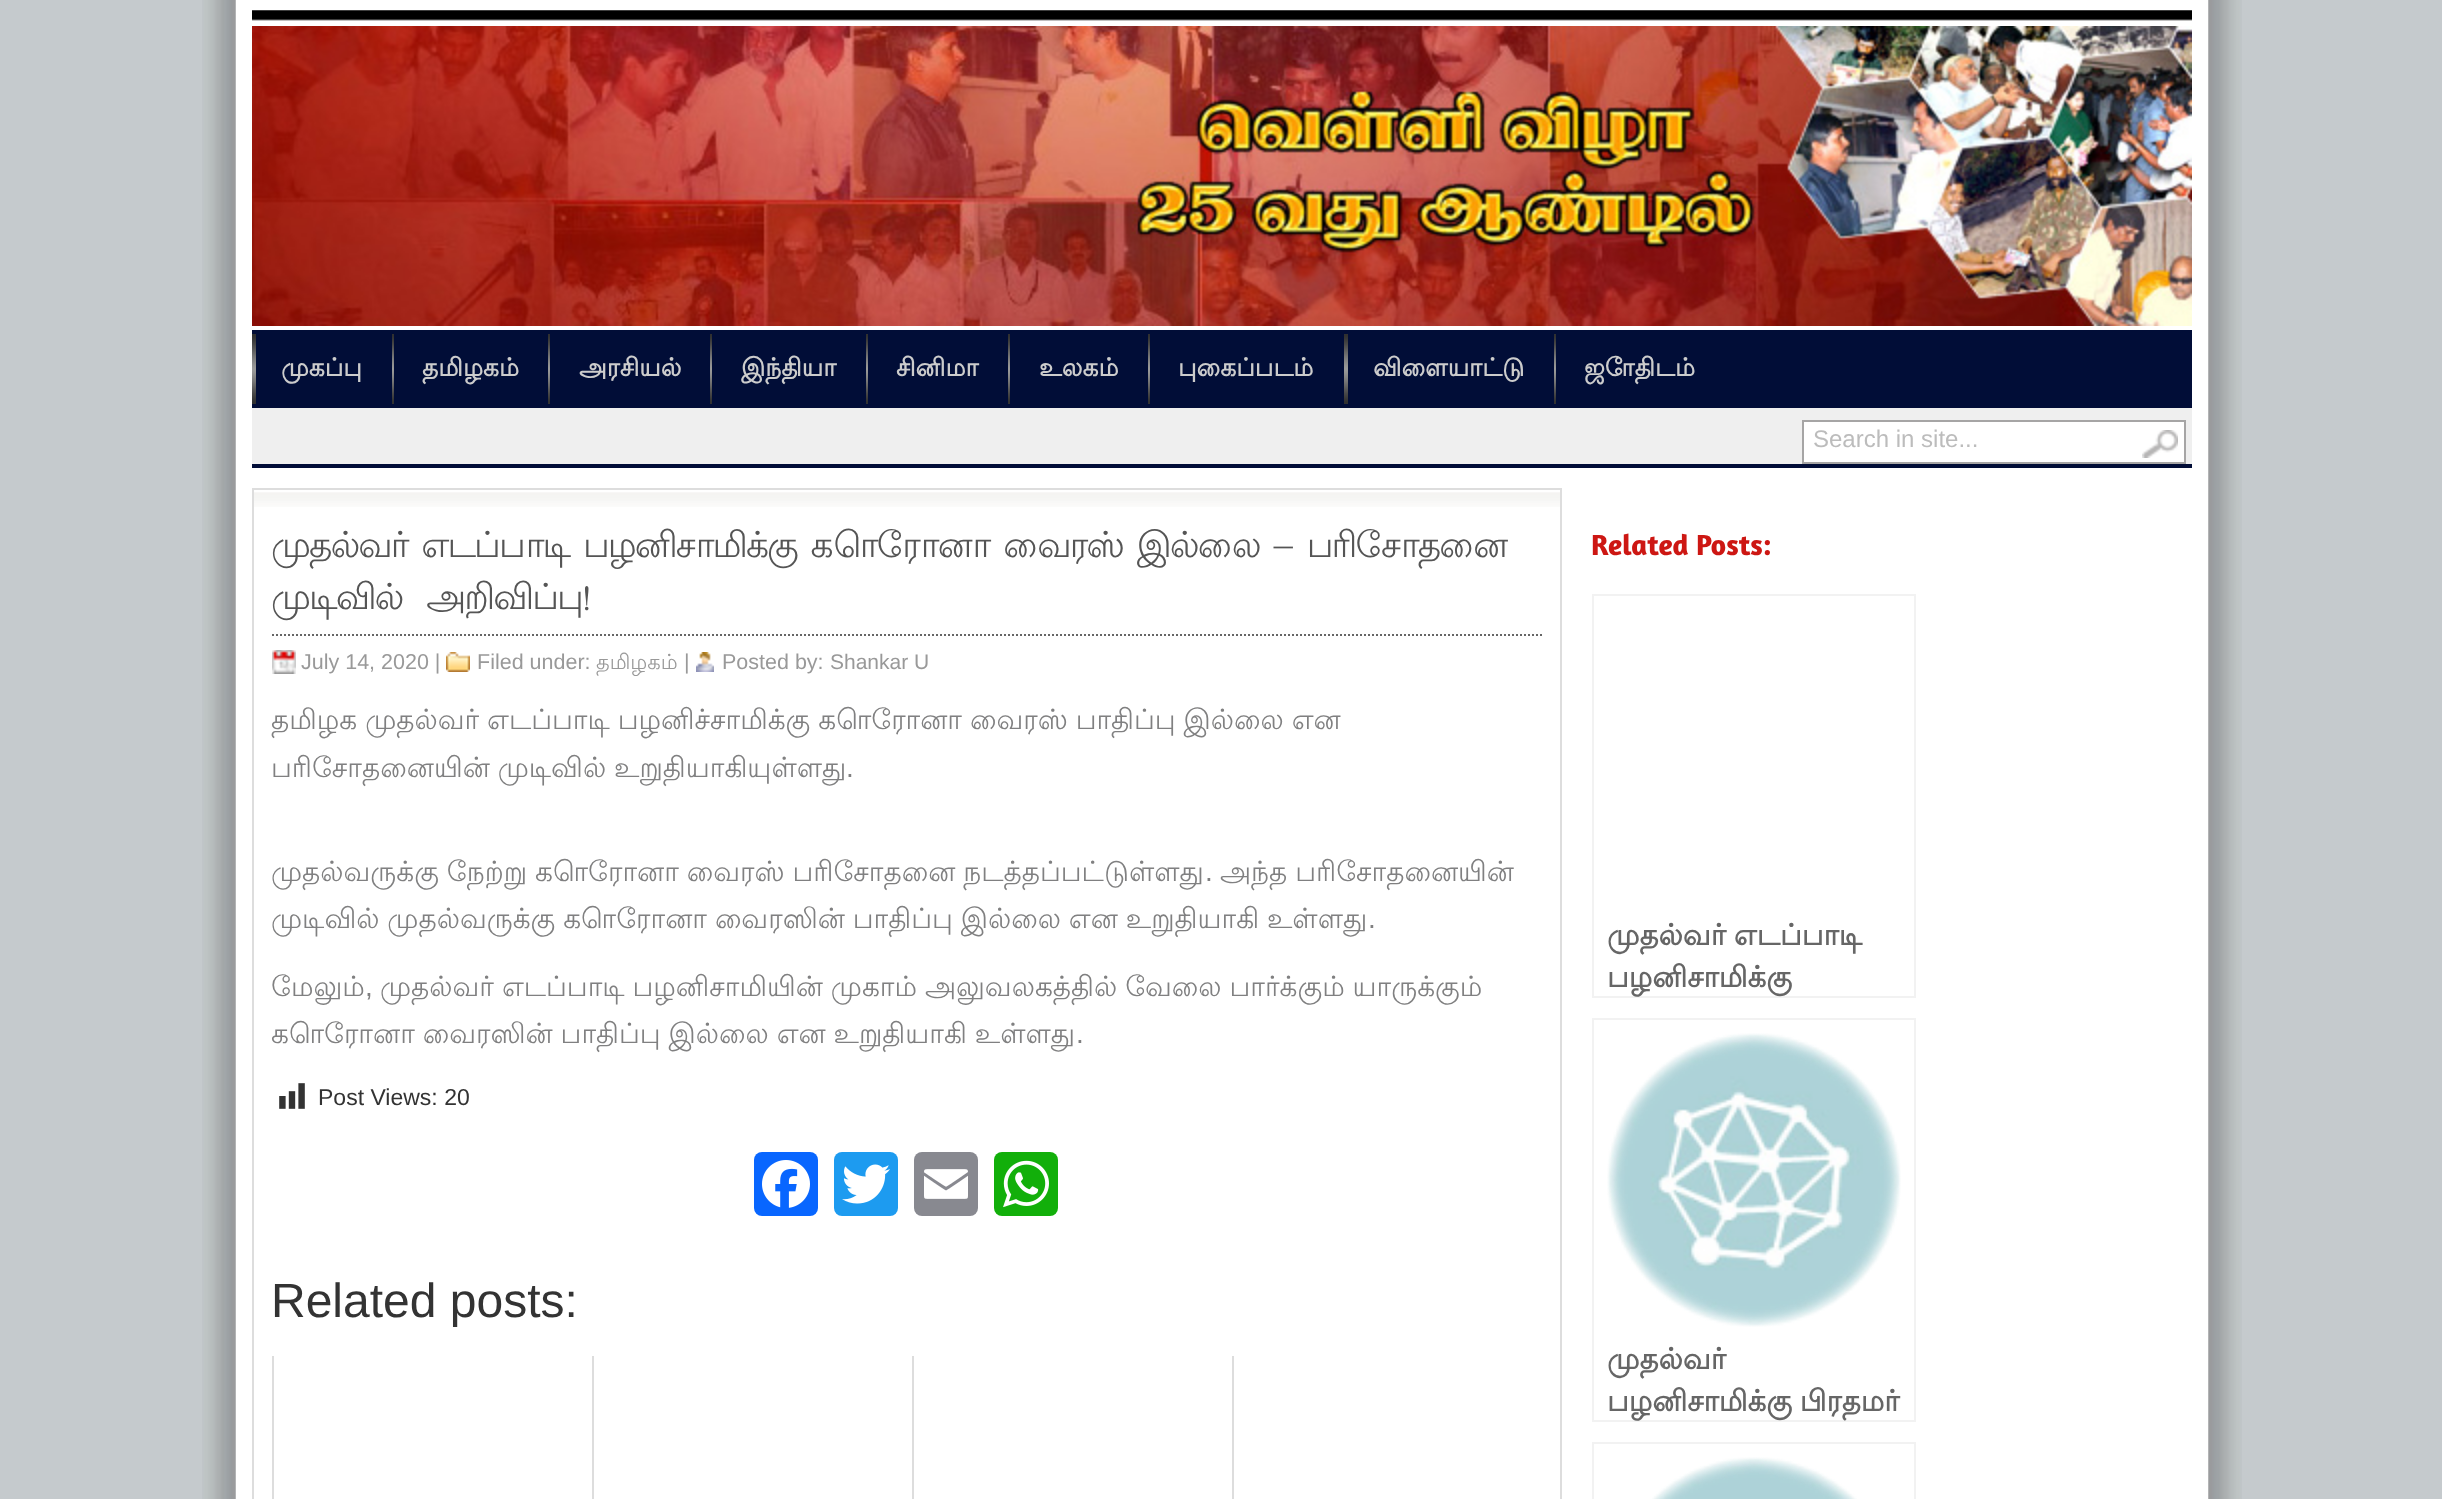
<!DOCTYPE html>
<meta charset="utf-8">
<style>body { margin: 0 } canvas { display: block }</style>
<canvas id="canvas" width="2442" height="1499"></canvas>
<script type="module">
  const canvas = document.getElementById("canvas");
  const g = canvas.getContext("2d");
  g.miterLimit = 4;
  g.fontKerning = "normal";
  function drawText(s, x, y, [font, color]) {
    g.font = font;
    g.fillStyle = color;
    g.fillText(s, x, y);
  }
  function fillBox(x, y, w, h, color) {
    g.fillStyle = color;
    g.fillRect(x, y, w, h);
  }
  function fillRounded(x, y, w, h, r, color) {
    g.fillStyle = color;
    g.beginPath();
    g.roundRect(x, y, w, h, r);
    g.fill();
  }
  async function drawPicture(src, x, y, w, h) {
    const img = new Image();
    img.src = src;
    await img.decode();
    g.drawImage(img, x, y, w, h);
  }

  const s1 = ["bold 25px Lohit Tamil", "#CCCCCC"];
  const s2 = ["24px Liberation Sans", "#BCBCBC"];
  const s3 = ["36px Lohit Tamil", "#555555"];
  const s4 = ["21.5px Liberation Sans", "#999999"];
  const s5 = ["21px Lohit Tamil", "#999999"];
  const s6 = ["21px Liberation Sans", "#999999"];
  const s7 = ["28px Lohit Tamil", "#808081"];
  const s8 = ["28px Liberation Sans", "#808081"];
  const s9 = ["23px Liberation Sans", "#333333"];
  const s10 = ["48px Liberation Sans", "#333333"];
  const s11 = ["bold 29.5px Amaranth", "#CD1713"];
  const s12 = ["bold 29.25px Lohit Tamil", "#666666"];

  fillBox(0, 0, 2442, 1499, "#C5CACD");
  await drawPicture("pic1.png", 202, 0, 2040, 1499);
  fillBox(236, 0, 1972, 1499, "#FFFFFF");
  await drawPicture("pic2.png", 252, 10, 1940, 11);
  await drawPicture("pic3.png", 252, 26, 1940, 300);
  fillBox(252, 330, 1940, 78, "#010D37");
  await drawPicture("pic4.png", 252, 334, 4, 70);
  drawText("முகப்பு", 281, 376, s1);
  await drawPicture("pic5.png", 392, 334, 2, 70);
  drawText("தமிழகம்", 422, 376, s1);
  await drawPicture("pic5.png", 548, 334, 2, 70);
  drawText("அரசியல்", 579, 376, s1);
  await drawPicture("pic5.png", 710, 334, 2, 70);
  drawText("இந்தியா", 741, 376, s1);
  await drawPicture("pic5.png", 866, 334, 2, 70);
  drawText("சினிமா", 896, 376, s1);
  await drawPicture("pic5.png", 1008, 334, 2, 70);
  drawText("உலகம்", 1039, 376, s1);
  await drawPicture("pic5.png", 1148, 334, 2, 70);
  drawText("புகைப்படம்", 1178, 376, s1);
  await drawPicture("pic4.png", 1344, 334, 4, 70);
  drawText("விளையாட்டு", 1373, 376, s1);
  await drawPicture("pic5.png", 1554, 334, 2, 70);
  drawText("ஜோதிடம்", 1584, 376, s1);
  fillBox(252, 408, 1940, 56, "#EFEFEF");
  fillBox(252, 464, 1940, 4, "#010D37");
  g.fillStyle = "#FFFFFF";
  g.beginPath();
  g.rect(1803, 421, 382, 42);
  g.fill();
  g.strokeStyle = "#A6A5A5";
  g.lineWidth = 2;
  g.stroke();
  drawText("Search in site...", 1813, 447, s2);
  await drawPicture("pic6.png", 2142, 430, 36, 28);
  await drawPicture("pic7.png", 254, 492, 1306, 15);
  g.strokeStyle = "#DDDDDD";
  g.strokeRect(253, 489, 1308, 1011);
  g.letterSpacing = "-2px";
  g.wordSpacing = "5px";
  drawText("முதல்வர் எடப்பாடி பழனிசாமிக்கு கொரோனா வைரஸ் இல்லை – பரிசோதனை", 271, 557, s3);
  g.wordSpacing = "15px";
  drawText("முடிவில் அறிவிப்பு!", 271, 609, s3);
  g.beginPath();
  g.moveTo(272, 635);
  g.lineTo(1542, 635);
  g.strokeStyle = "#666666";
  g.setLineDash([2, 2]);
  g.stroke();
  await drawPicture("pic8.png", 272, 650, 24, 24);
  g.letterSpacing = "0px";
  g.wordSpacing = "0px";
  drawText("July 14, 2020 |", 301, 669, s4);
  await drawPicture("pic9.png", 446, 652, 24, 20);
  drawText("Filed under:", 477, 669, s4);
  drawText("தமிழகம்", 596, 669, s5);
  drawText("|", 684, 669, s4);
  await drawPicture("pic10.png", 696, 652, 18, 20);
  drawText("Posted by:", 722, 669, s4);
  drawText("Shankar U", 830, 669, s6);
  g.wordSpacing = "-0.5px";
  drawText("தமிழக முதல்வர் எடப்பாடி பழனிச்சாமிக்கு கொரோனா வைரஸ் பாதிப்பு இல்லை என", 271, 729, s7);
  drawText("பரிசோதனையின் முடிவில் உறுதியாகியுள்ளது", 271, 777, s7);
  g.wordSpacing = "0px";
  drawText(".", 846, 777, s8);
  g.wordSpacing = "-0.5px";
  drawText("முதல்வருக்கு நேற்று கொரோனா வைரஸ் பரிசோதனை நடத்தப்பட்டுள்ளது", 271, 881, s7);
  g.wordSpacing = "0px";
  drawText(".", 1205, 881, s8);
  g.wordSpacing = "-0.5px";
  drawText("அந்த பரிசோதனையின்", 1220, 881, s7);
  drawText("முடிவில் முதல்வருக்கு கொரோனா வைரஸின் பாதிப்பு இல்லை என உறுதியாகி உள்ளது", 271, 928, s7);
  g.wordSpacing = "0px";
  drawText(".", 1368, 928, s8);
  drawText("மேலும்", 271, 996, s7);
  drawText(",", 365, 996, s8);
  g.wordSpacing = "-0.5px";
  drawText("முதல்வர் எடப்பாடி பழனிசாமியின் முகாம் அலுவலகத்தில் வேலை பார்க்கும் யாருக்கும்", 380, 996, s7);
  drawText("கொரோனா வைரஸின் பாதிப்பு இல்லை என உறுதியாகி உள்ளது", 271, 1043, s7);
  g.wordSpacing = "0px";
  drawText(".", 1076, 1043, s8);
  await drawPicture("pic11.png", 279, 1083, 26, 26);
  drawText("Post Views: 20", 318, 1105, s9);
  fillRounded(754, 1152, 64, 64, 8, "#0866FF");
  await drawPicture("pic12.png", 762, 1160, 48, 48);
  fillRounded(834, 1152, 64, 64, 8, "#1D9BF0");
  await drawPicture("pic13.png", 842, 1164, 48, 40);
  fillRounded(914, 1152, 64, 64, 8, "#888990");
  await drawPicture("pic14.png", 924, 1169, 44, 30);
  fillRounded(994, 1152, 64, 64, 8, "#12AF0A");
  await drawPicture("pic15.png", 1003, 1160, 46, 48);
  drawText("Related posts:", 271, 1317, s10);
  fillBox(272, 1356, 2, 143, "#DDDDDD");
  fillBox(592, 1356, 2, 143, "#DDDDDD");
  fillBox(1232, 1356, 2, 143, "#DDDDDD");
  fillBox(912, 1356, 2, 143, "#DDDDDD");
  drawText("Related Posts:", 1591, 555, s11);
  g.strokeStyle = "#F2F2F2";
  g.setLineDash([]);
  g.strokeRect(1593, 595, 322, 402);
  g.wordSpacing = "-1px";
  drawText("முதல்வர் எடப்பாடி", 1607, 945, s12);
  g.wordSpacing = "0px";
  drawText("பழனிசாமிக்கு", 1607, 987, s12);
  g.strokeRect(1593, 1019, 322, 402);
  await drawPicture("pic16.png", 1607, 1033, 294, 294);
  drawText("முதல்வர்", 1607, 1369, s12);
  g.wordSpacing = "-1px";
  drawText("பழனிசாமிக்கு பிரதமர்", 1607, 1411, s12);
  g.strokeRect(1593, 1443, 322, 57);
  await drawPicture("pic17.png", 1652, 1457, 205, 42);
</script>
